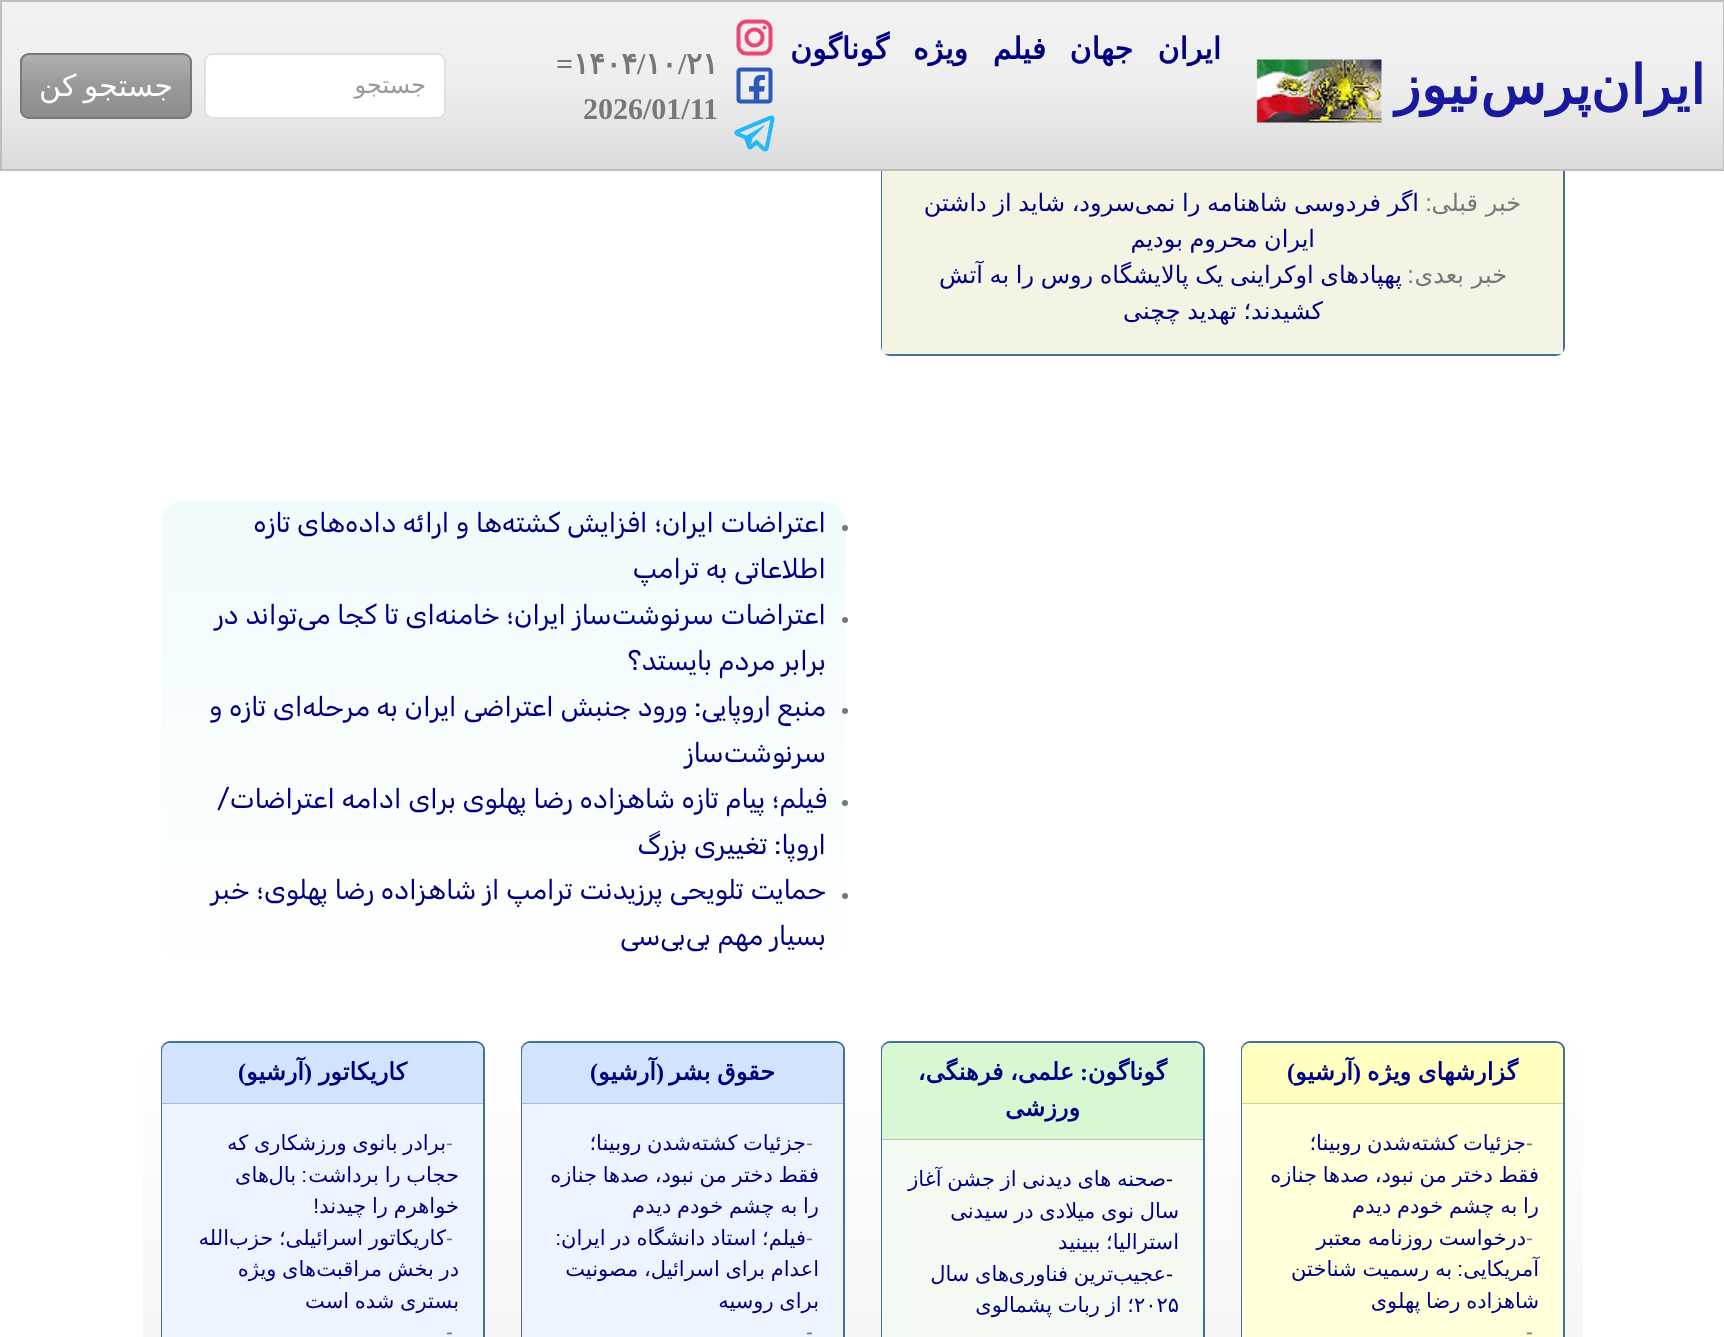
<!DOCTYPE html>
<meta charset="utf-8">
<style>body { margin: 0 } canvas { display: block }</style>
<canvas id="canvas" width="1724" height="1337"></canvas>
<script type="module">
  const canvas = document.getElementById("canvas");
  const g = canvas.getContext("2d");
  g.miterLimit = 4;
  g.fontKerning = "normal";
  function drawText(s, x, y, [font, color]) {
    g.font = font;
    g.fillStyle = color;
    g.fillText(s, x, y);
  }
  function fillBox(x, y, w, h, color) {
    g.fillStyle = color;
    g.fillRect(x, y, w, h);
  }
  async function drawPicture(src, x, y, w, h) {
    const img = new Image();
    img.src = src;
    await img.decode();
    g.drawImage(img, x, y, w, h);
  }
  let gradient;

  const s1 = ["bold 54px DejaVu Sans", "#1A199E"];
  const s2 = ["bold 30px DejaVu Sans", "#000080"];
  const s3 = ["bold 30px DejaVu Sans", "#777777"];
  const s4 = ["bold 30px Liberation Serif", "#777777"];
  const s5 = ["24px DejaVu Sans", "#999999"];
  const s6 = ["30px DejaVu Sans", "#FFFFFF"];
  const s7 = ["24px DejaVu Sans", "#777777"];
  const s8 = ["24px Liberation Sans", "#777777"];
  const s9 = ["24px DejaVu Sans", "#000080"];
  const s10 = ["27px Rubik", "#000080"];
  const s11 = ["bold 24px DejaVu Sans", "#000080"];
  const s12 = ["bold 24px Liberation Serif", "#000080"];
  const s13 = ["21px Liberation Sans", "#777777"];
  const s14 = ["21px DejaVu Sans", "#000080"];
  const s15 = ["21px Liberation Sans", "#000080"];
  const s16 = ["21px Liberation Sans", "#000000"];

  fillBox(0, 0, 1724, 1337, "#FFFFFF");
  g.beginPath();
  g.roundRect(882, 100, 682, 255, 8);
  g.strokeStyle = "#446E9B";
  g.lineWidth = 2;
  g.stroke();
  gradient = g.createLinearGradient(863, 1.5, 863, 170);
  gradient.addColorStop(0, "#F2F2F2");
  gradient.addColorStop(0.5, "#EEEEEE");
  gradient.addColorStop(1, "#DBDBDB");
  g.fillStyle = gradient;
  g.fillRect(2, 2, 1721, 167);
  g.strokeStyle = "#BEBEBE";
  g.strokeRect(1, 1, 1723, 169);
  g.direction = "rtl";
  drawText("ایران", 1705, 104, s1);
  drawText("پرس", 1591, 104, s1);
  drawText("نیوز", 1480, 104, s1);
  await drawPicture("pic1.png", 1256, 59, 126, 64);
  drawText("ایران", 1221, 59, s2);
  drawText("جهان", 1133, 59, s2);
  drawText("فیلم", 1046, 59, s2);
  drawText("ویژه", 968, 59, s2);
  drawText("گوناگون", 889, 59, s2);
  await drawPicture("pic2.png", 736, 19, 37, 37);
  await drawPicture("pic3.png", 736, 67, 37, 37);
  await drawPicture("pic4.png", 734, 115, 41, 37);
  g.direction = "ltr";
  drawText("۲۱", 686, 74, s3);
  drawText("/", 678, 74, s4);
  drawText("۱۰", 645, 74, s3);
  drawText("/", 637, 74, s4);
  drawText("۱۴۰۴", 573, 74, s3);
  drawText("=", 556, 74, s4);
  drawText("2026/01/11", 583, 119, s4);
  g.fillStyle = "#FFFFFF";
  g.beginPath();
  g.roundRect(205, 54, 240, 64, 8);
  g.fill();
  g.strokeStyle = "#DEE2E6";
  g.stroke();
  g.direction = "rtl";
  drawText("جستجو", 426, 93, s5);
  g.save();
  g.beginPath();
  g.roundRect(20, 53, 172, 66, 9);
  g.clip();
  gradient = g.createLinearGradient(106, 54, 106, 117);
  gradient.addColorStop(0, "#B1B1B1");
  gradient.addColorStop(0.5, "#999999");
  gradient.addColorStop(1, "#8D8D8D");
  g.fillStyle = gradient;
  g.fillRect(20, 54, 172, 63);
  g.restore();
  g.beginPath();
  g.roundRect(21, 54, 170, 64, 8);
  g.strokeStyle = "#7A7A7A";
  g.stroke();
  g.wordSpacing = "-2px";
  drawText("جستجو کن", 173, 96, s6);
  fillBox(882, 171, 681, 183, "#F4F4E4");
  g.wordSpacing = "0px";
  drawText("خبر قبلی", 1521, 211, s7);
  drawText(":", 1432, 211, s8);
  g.wordSpacing = "-1px";
  drawText("اگر فردوسی شاهنامه را نمی", 1419, 211, s9);
  drawText("سرود، شاید از داشتن", 1135, 211, s9);
  drawText("ایران محروم بودیم", 1315, 247, s9);
  g.wordSpacing = "0px";
  drawText("خبر بعدی", 1507, 283, s7);
  drawText(":", 1414, 283, s8);
  g.wordSpacing = "-1px";
  drawText("پهپادهای اوکراینی یک پالایشگاه روس را به آتش", 1402, 283, s9);
  drawText("کشیدند؛ تهدید چچنی", 1323, 319, s9);
  gradient = g.createLinearGradient(503, 501, 503, 960);
  gradient.addColorStop(0, "#F0FBFC");
  gradient.addColorStop(1, "#FFFFFF");
  g.fillStyle = gradient;
  g.beginPath();
  g.roundRect(161, 501, 684, 459, 23);
  g.fill();
  g.fillStyle = "#777777";
  g.beginPath();
  g.arc(845, 528, 3, 0, Math.PI * 2);
  g.fill();
  g.wordSpacing = "0px";
  drawText("اعتراضات ایران؛ افزایش کشته‌ها و ارائه داده‌های تازه", 826, 532, s10);
  drawText("اطلاعاتی به ترامپ", 826, 578, s10);
  g.fillStyle = "#777777";
  g.beginPath();
  g.arc(845, 620, 3, 0, Math.PI * 2);
  g.fill();
  drawText("اعتراضات سرنوشت‌ساز ایران؛ خامنه‌ای تا کجا می‌تواند در", 826, 624, s10);
  drawText("برابر مردم بایستد؟", 826, 670, s10);
  g.fillStyle = "#777777";
  g.beginPath();
  g.arc(845, 711, 3, 0, Math.PI * 2);
  g.fill();
  drawText("منبع اروپایی: ورود جنبش اعتراضی ایران به مرحله‌ای تازه و", 826, 716, s10);
  drawText("سرنوشت‌ساز", 826, 762, s10);
  g.fillStyle = "#777777";
  g.beginPath();
  g.arc(845, 803, 3, 0, Math.PI * 2);
  g.fill();
  drawText("فیلم؛ پیام تازه شاهزاده رضا پهلوی برای ادامه اعتراضات/", 827, 808, s10);
  drawText("اروپا: تغییری بزرگ", 826, 854, s10);
  g.fillStyle = "#777777";
  g.beginPath();
  g.arc(845, 896, 3, 0, Math.PI * 2);
  g.fill();
  drawText("حمایت تلویحی پرزیدنت ترامپ از شاهزاده رضا پهلوی؛ خبر", 826, 899, s10);
  drawText("بسیار مهم بی‌بی‌سی", 826, 945, s10);
  gradient = g.createLinearGradient(863, 1041, 863, 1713);
  gradient.addColorStop(0, "#FFFFFF");
  gradient.addColorStop(1, "#EBEBEB");
  g.fillStyle = gradient;
  g.beginPath();
  g.roundRect(143, 1041, 1440, 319, 23);
  g.fill();
  g.fillStyle = "#FFFFFF";
  g.beginPath();
  g.roundRect(1242, 1042, 322, 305, 8);
  g.fill();
  g.strokeStyle = "#446E9B";
  g.stroke();
  g.fillStyle = "#FFFFC0";
  g.beginPath();
  g.roundRect(1242, 1043, 321, 61, [8, 8, 0, 0]);
  g.fill();
  fillBox(1242, 1103, 321, 1, "rgba(0, 0, 0, 0.18)");
  g.wordSpacing = "-1px";
  drawText("گزارشهای ویژه", 1518, 1080, s11);
  g.wordSpacing = "0px";
  drawText(")", 1295, 1080, s12);
  drawText("آرشيو", 1353, 1080, s11);
  drawText("(", 1361, 1080, s12);
  fillBox(1242, 1104, 321, 233, "#FFFFD9");
  g.direction = "ltr";
  drawText("-", 1526, 1150, s13);
  g.wordSpacing = "-1px";
  g.direction = "rtl";
  drawText("جزئیات کشته", 1526, 1150, s14);
  drawText("شدن روبینا؛", 1411, 1150, s14);
  drawText("فقط دختر من نبود، صدها جنازه", 1539, 1182, s14);
  drawText("را به چشم خودم دیدم", 1539, 1213, s14);
  g.wordSpacing = "0px";
  g.direction = "ltr";
  drawText("-", 1526, 1245, s13);
  g.wordSpacing = "-1px";
  g.direction = "rtl";
  drawText("درخواست روزنامه معتبر", 1526, 1245, s14);
  g.wordSpacing = "0px";
  drawText("آمریکایی", 1539, 1276, s14);
  drawText(":", 1463, 1276, s15);
  g.wordSpacing = "-1px";
  drawText("به رسمیت شناختن", 1452, 1276, s14);
  drawText("شاهزاده رضا پهلوی", 1539, 1308, s14);
  g.wordSpacing = "0px";
  g.direction = "ltr";
  drawText("-", 1526, 1339, s13);
  g.fillStyle = "#FFFFFF";
  g.beginPath();
  g.roundRect(882, 1042, 322, 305, 8);
  g.fill();
  g.stroke();
  g.fillStyle = "#D8F7D3";
  g.beginPath();
  g.roundRect(882, 1043, 321, 97, [8, 8, 0, 0]);
  g.fill();
  fillBox(882, 1139, 321, 1, "rgba(0, 0, 0, 0.18)");
  g.direction = "rtl";
  drawText("گوناگون", 1167, 1080, s11);
  drawText(":", 1088, 1080, s12);
  g.wordSpacing = "-1px";
  drawText("علمی، فرهنگی،", 1074, 1080, s11);
  g.wordSpacing = "0px";
  drawText("ورزشی", 1080, 1116, s11);
  fillBox(882, 1140, 321, 197, "#F4FAF2");
  g.direction = "ltr";
  drawText("-", 1166, 1186, s16);
  g.wordSpacing = "-1px";
  g.direction = "rtl";
  drawText("صحنه های دیدنی از جشن آغاز", 1166, 1186, s14);
  drawText("سال نوی میلادی در سیدنی", 1179, 1218, s14);
  drawText("استرالیا؛ ببینید", 1179, 1249, s14);
  g.wordSpacing = "0px";
  g.direction = "ltr";
  drawText("-", 1166, 1281, s16);
  g.direction = "rtl";
  drawText("عجیب", 1166, 1281, s14);
  g.wordSpacing = "-1px";
  drawText("ترین فناوری", 1113, 1281, s14);
  drawText("های سال", 1009, 1281, s14);
  drawText("؛ از ربات پشمالوی", 1134, 1312, s14);
  g.wordSpacing = "0px";
  g.direction = "ltr";
  drawText("۲۰۲۵", 1134, 1312, s14);
  g.fillStyle = "#FFFFFF";
  g.beginPath();
  g.roundRect(522, 1042, 322, 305, 8);
  g.fill();
  g.stroke();
  g.fillStyle = "#D1E3FF";
  g.beginPath();
  g.roundRect(522, 1043, 321, 61, [8, 8, 0, 0]);
  g.fill();
  fillBox(522, 1103, 321, 1, "rgba(0, 0, 0, 0.18)");
  g.wordSpacing = "-1px";
  g.direction = "rtl";
  drawText("حقوق بشر", 775, 1080, s11);
  g.wordSpacing = "0px";
  drawText(")", 598, 1080, s12);
  drawText("آرشيو", 656, 1080, s11);
  drawText("(", 664, 1080, s12);
  fillBox(522, 1104, 321, 233, "#EDF4FF");
  g.direction = "ltr";
  drawText("-", 806, 1150, s13);
  g.wordSpacing = "-1px";
  g.direction = "rtl";
  drawText("جزئیات کشته", 806, 1150, s14);
  drawText("شدن روبینا؛", 691, 1150, s14);
  drawText("فقط دختر من نبود، صدها جنازه", 819, 1182, s14);
  drawText("را به چشم خودم دیدم", 819, 1213, s14);
  g.wordSpacing = "0px";
  g.direction = "ltr";
  drawText("-", 806, 1245, s13);
  g.wordSpacing = "-1px";
  g.direction = "rtl";
  drawText("فیلم؛ استاد دانشگاه در ایران", 806, 1245, s14);
  g.wordSpacing = "0px";
  drawText(":", 561, 1245, s15);
  g.wordSpacing = "-1px";
  drawText("اعدام برای اسرائیل، مصونیت", 819, 1276, s14);
  drawText("برای روسیه", 819, 1308, s14);
  g.wordSpacing = "0px";
  g.direction = "ltr";
  drawText("-", 806, 1339, s13);
  g.fillStyle = "#FFFFFF";
  g.beginPath();
  g.roundRect(162, 1042, 322, 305, 8);
  g.fill();
  g.stroke();
  g.fillStyle = "#D1E3FF";
  g.beginPath();
  g.roundRect(162, 1043, 321, 61, [8, 8, 0, 0]);
  g.fill();
  fillBox(162, 1103, 321, 1, "rgba(0, 0, 0, 0.18)");
  g.direction = "rtl";
  drawText("کاريکاتور", 407, 1080, s11);
  drawText(")", 246, 1080, s12);
  drawText("آرشيو", 304, 1080, s11);
  drawText("(", 312, 1080, s12);
  fillBox(162, 1104, 321, 233, "#EDF4FF");
  g.direction = "ltr";
  drawText("-", 446, 1150, s13);
  g.wordSpacing = "-1px";
  g.direction = "rtl";
  drawText("برادر بانوی ورزشکاری که", 446, 1150, s14);
  drawText("حجاب را برداشت", 459, 1182, s14);
  g.wordSpacing = "0px";
  drawText(":", 307, 1182, s15);
  drawText("بال", 296, 1182, s14);
  drawText("های", 269, 1182, s14);
  g.wordSpacing = "-1px";
  drawText("خواهرم را چیدند", 459, 1213, s14);
  g.wordSpacing = "0px";
  drawText("!", 319, 1213, s15);
  g.direction = "ltr";
  drawText("-", 446, 1245, s13);
  g.wordSpacing = "-1px";
  g.direction = "rtl";
  drawText("کاریکاتور اسرائیلی؛ حزب", 446, 1245, s14);
  g.wordSpacing = "0px";
  drawText("الله", 229, 1245, s14);
  g.wordSpacing = "-1px";
  drawText("در بخش مراقبت", 459, 1276, s14);
  drawText("های ویژه", 316, 1276, s14);
  drawText("بستری شده است", 459, 1308, s14);
  g.wordSpacing = "0px";
  g.direction = "ltr";
  drawText("-", 446, 1339, s13);
</script>
